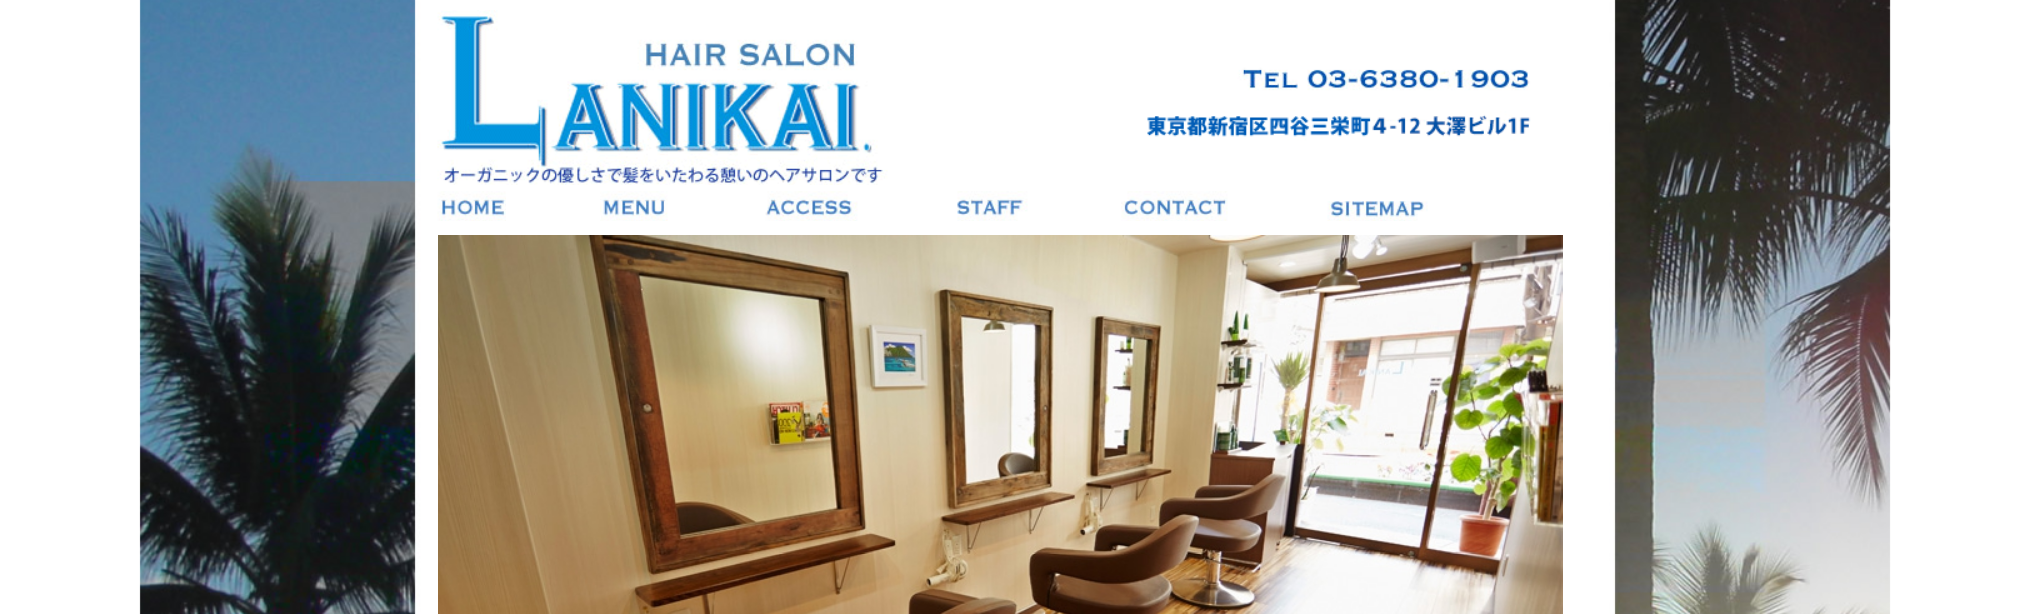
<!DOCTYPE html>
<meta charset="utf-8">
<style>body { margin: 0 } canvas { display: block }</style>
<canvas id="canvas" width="2028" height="614"></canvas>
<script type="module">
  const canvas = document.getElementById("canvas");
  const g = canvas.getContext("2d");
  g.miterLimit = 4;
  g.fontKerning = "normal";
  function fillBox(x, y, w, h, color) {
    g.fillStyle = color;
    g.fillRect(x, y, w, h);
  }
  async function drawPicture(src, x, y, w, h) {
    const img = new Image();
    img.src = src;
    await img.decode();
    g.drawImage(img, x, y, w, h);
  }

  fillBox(0, 0, 2028, 614, "#FFFFFF");
  await drawPicture("pic1.png", 139, 0, 1752, 614);
  fillBox(1610, 223, 3, 390, "#FFFFFF");
  await drawPicture("pic2.png", 437, 10, 1094, 175);
  await drawPicture("pic3.png", 437, 191, 69, 30);
  await drawPicture("pic4.png", 600, 191, 68, 30);
  await drawPicture("pic5.png", 765, 191, 93, 30);
  await drawPicture("pic6.png", 957, 191, 71, 30);
  await drawPicture("pic7.png", 1121, 191, 107, 30);
  await drawPicture("pic8.png", 1327, 201, 101, 20);
  await drawPicture("pic9.png", 438, 235, 1125, 379);
</script>
